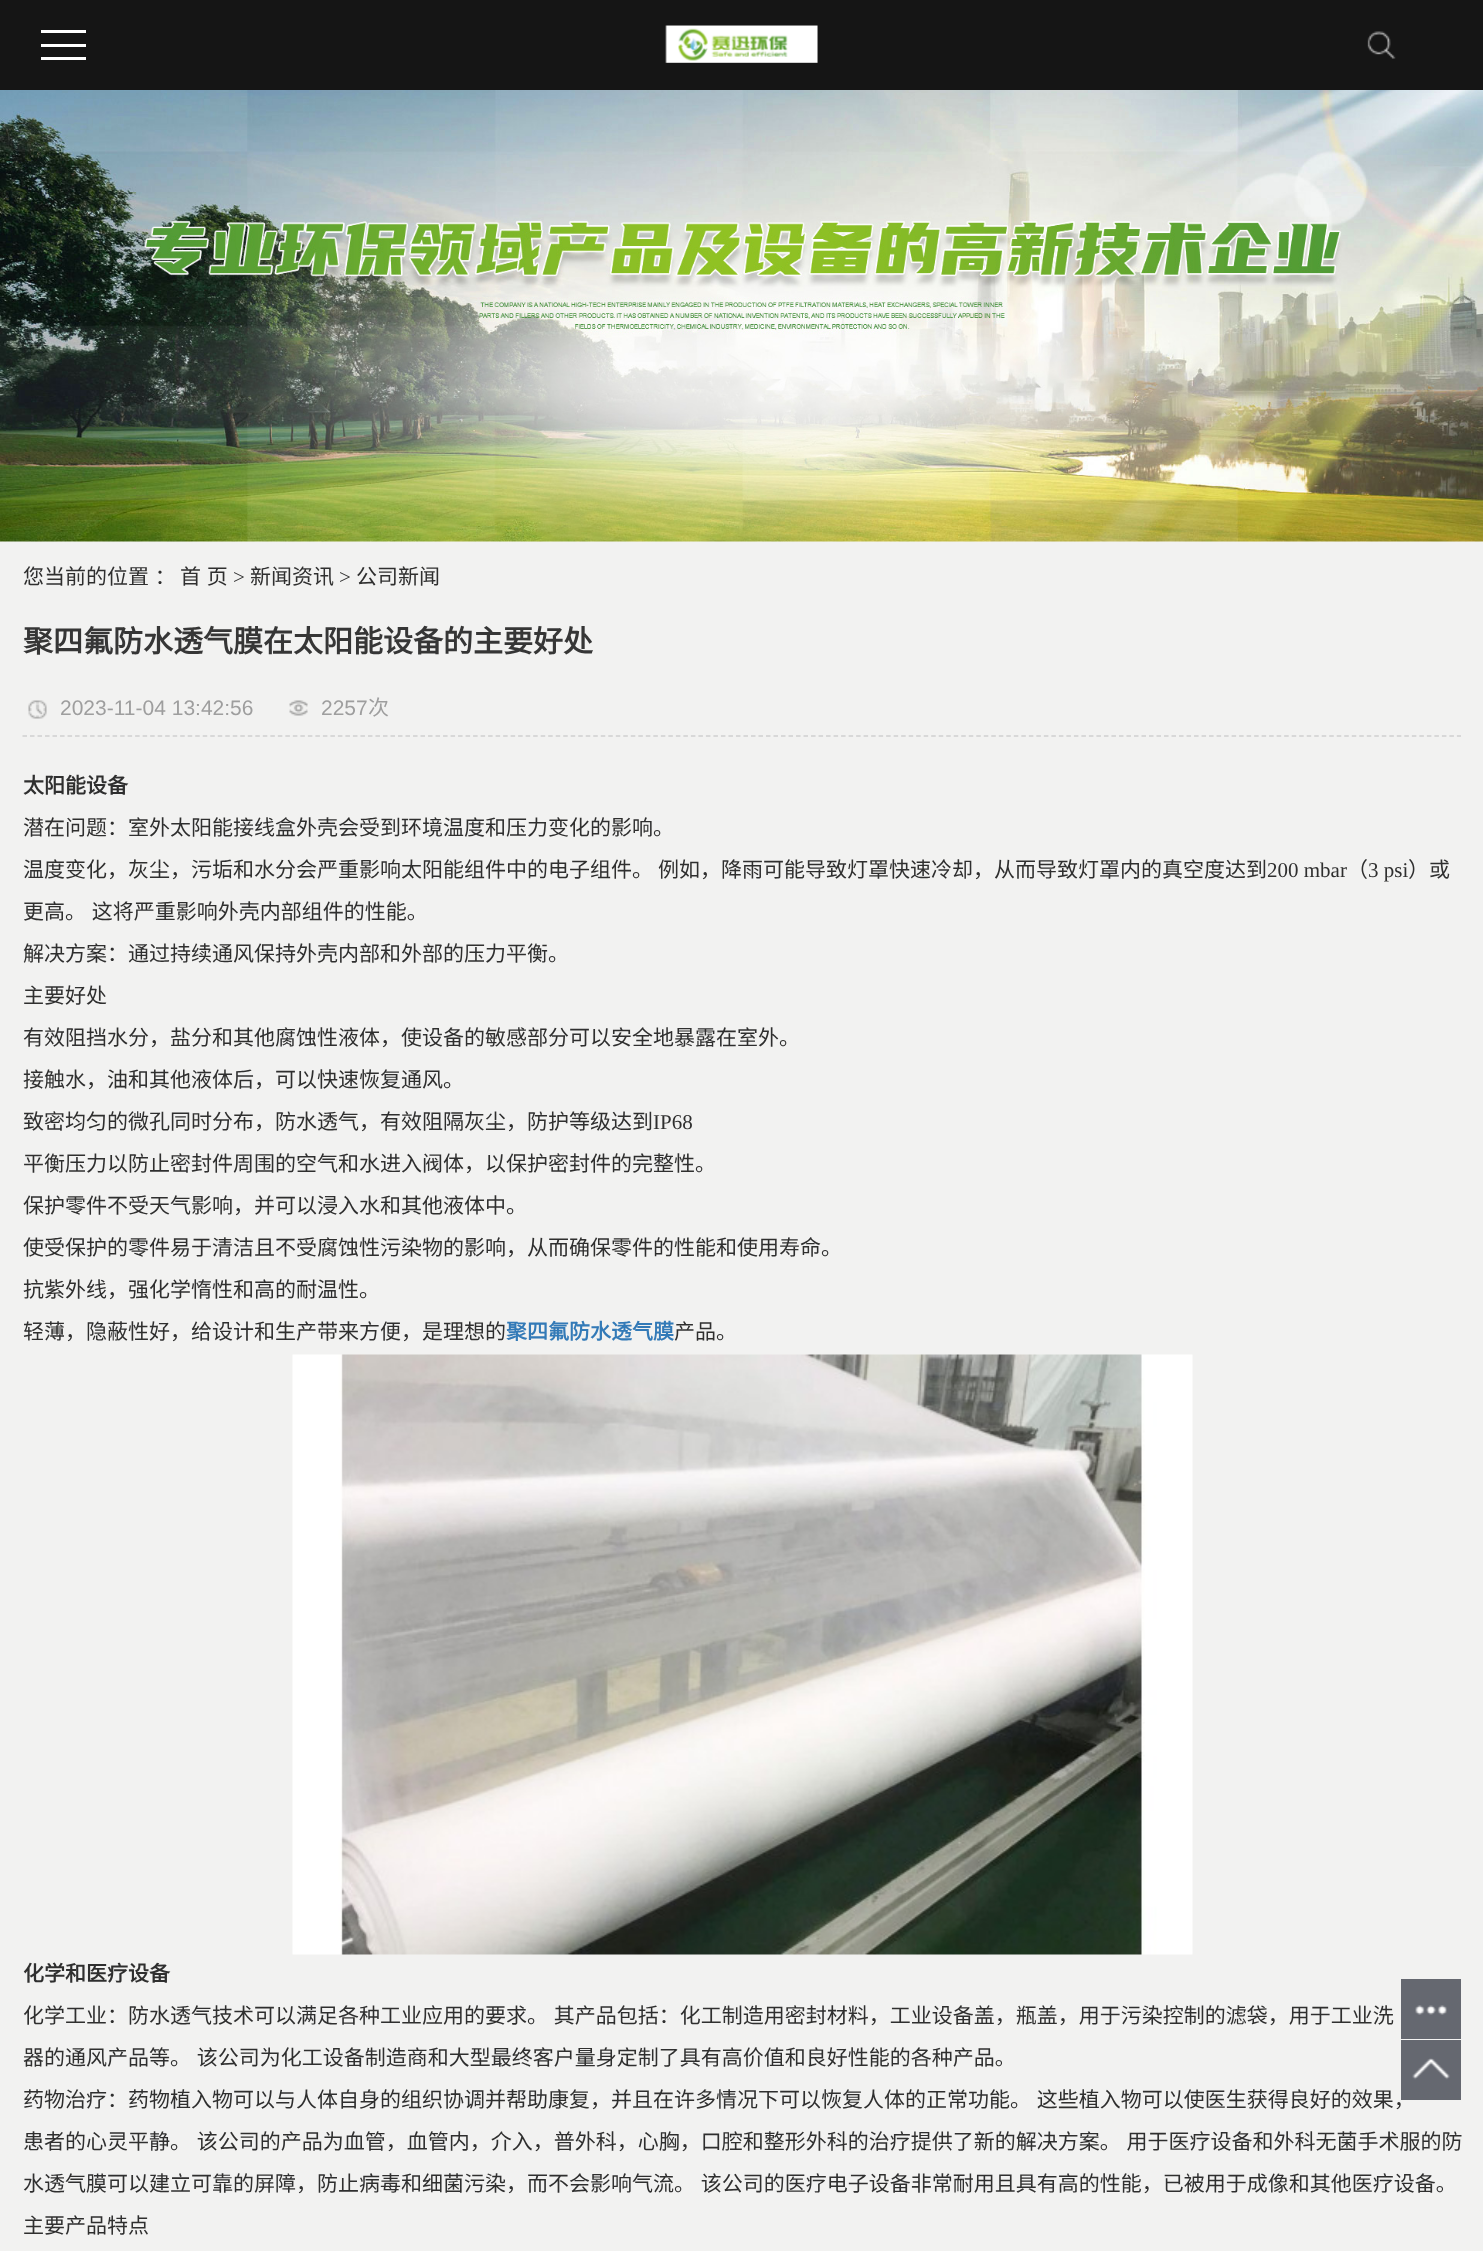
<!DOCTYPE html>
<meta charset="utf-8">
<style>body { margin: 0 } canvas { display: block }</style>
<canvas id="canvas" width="1483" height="2251"></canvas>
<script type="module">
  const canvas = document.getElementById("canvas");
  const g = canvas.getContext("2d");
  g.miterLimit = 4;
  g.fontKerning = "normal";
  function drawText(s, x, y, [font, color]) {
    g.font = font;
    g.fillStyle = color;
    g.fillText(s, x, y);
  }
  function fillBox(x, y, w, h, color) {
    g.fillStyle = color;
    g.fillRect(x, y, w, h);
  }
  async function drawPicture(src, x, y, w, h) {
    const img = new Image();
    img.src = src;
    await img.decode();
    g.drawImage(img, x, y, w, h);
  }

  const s1 = ["21px Noto Sans CJK SC", "#2F2F2F"];
  const s2 = ["21px Liberation Serif", "#2F2F2F"];
  const s3 = ["bold 30px Noto Sans CJK SC", "#363636"];
  const s4 = ["21px Liberation Sans", "#9E9E9E"];
  const s5 = ["21px Noto Sans CJK SC", "#9E9E9E"];
  const s6 = ["bold 21px Noto Sans CJK SC", "#2F2F2F"];
  const s7 = ["bold 21px Noto Sans CJK SC", "#337AB7"];

  fillBox(0, 0, 1483, 2251, "#F2F2F1");
  fillBox(0, 0, 1483, 90, "#151515");
  fillBox(41, 30, 45, 3, "#FFFFFF");
  fillBox(41, 44, 45, 3, "#FFFFFF");
  fillBox(41, 57, 45, 3, "#FFFFFF");
  await drawPicture("pic1.png", 665, 25, 153, 38);
  await drawPicture("pic2.png", 1367, 31, 29, 28);
  await drawPicture("pic3.png", 0, 90, 1483, 452);
  g.wordSpacing = "1px";
  drawText("您当前的位置 ：", 23, 584, s1);
  drawText("首 页", 180, 584, s1);
  g.wordSpacing = "0px";
  drawText(">", 233, 584, s2);
  drawText("新闻资讯", 250, 584, s1);
  drawText(">", 339, 584, s2);
  drawText("公司新闻", 356, 584, s1);
  drawText("聚四氟防水透气膜在太阳能设备的主要好处", 23, 652, s3);
  g.beginPath();
  g.moveTo(22.5, 736);
  g.lineTo(1461, 736);
  g.strokeStyle = "#CFCFCF";
  g.lineWidth = 1.5;
  g.setLineDash([4.5, 3.01]);
  g.stroke();
  await drawPicture("pic4.png", 28, 700, 19, 19);
  drawText("2023-11-04 13:42:56", 60, 715, s4);
  await drawPicture("pic5.png", 289, 700, 19, 16);
  drawText("2257", 321, 715, s4);
  drawText("次", 368, 715, s5);
  drawText("太阳能设备", 23, 793, s6);
  drawText("潜在问题：室外太阳能接线盒外壳会受到环境温度和压力变化的影响。", 23, 835, s1);
  drawText("温度变化，灰尘，污垢和水分会严重影响太阳能组件中的电子组件。", 23, 877, s1);
  drawText("例如，降雨可能导致灯罩快速冷却，从而导致灯罩内的真空度达到", 658, 877, s1);
  drawText("200 mbar", 1267, 877, s2);
  drawText("（", 1347, 877, s1);
  drawText("3 psi", 1368, 877, s2);
  drawText("）或", 1408, 877, s1);
  g.wordSpacing = "1px";
  drawText("更高。 这将严重影响外壳内部组件的性能。", 23, 919, s1);
  g.wordSpacing = "0px";
  drawText("解决方案：通过持续通风保持外壳内部和外部的压力平衡。", 23, 961, s1);
  drawText("主要好处", 23, 1003, s1);
  drawText("有效阻挡水分，盐分和其他腐蚀性液体，使设备的敏感部分可以安全地暴露在室外。", 23, 1045, s1);
  drawText("接触水，油和其他液体后，可以快速恢复通风。", 23, 1087, s1);
  drawText("致密均匀的微孔同时分布，防水透气，有效阻隔灰尘，防护等级达到", 23, 1129, s1);
  drawText("IP68", 653, 1129, s2);
  drawText("平衡压力以防止密封件周围的空气和水进入阀体，以保护密封件的完整性。", 23, 1171, s1);
  drawText("保护零件不受天气影响，并可以浸入水和其他液体中。", 23, 1213, s1);
  drawText("使受保护的零件易于清洁且不受腐蚀性污染物的影响，从而确保零件的性能和使用寿命。", 23, 1255, s1);
  drawText("抗紫外线，强化学惰性和高的耐温性。", 23, 1297, s1);
  drawText("轻薄，隐蔽性好，给设计和生产带来方便，是理想的", 23, 1339, s1);
  drawText("聚四氟防水透气膜", 506, 1339, s7);
  drawText("产品。", 674, 1339, s1);
  await drawPicture("pic6.png", 292, 1354, 901, 601);
  drawText("化学和医疗设备", 23, 1981, s6);
  g.wordSpacing = "1px";
  drawText("化学工业：防水透气技术可以满足各种工业应用的要求。 其产品包括：化工制造用密封材料，工业设备盖，瓶盖，用于污染控制的滤袋，用于工业洗", 23, 2023, s1);
  drawText("器的通风产品等。 该公司为化工设备制造商和大型最终客户量身定制了具有高价值和良好性能的各种产品。", 23, 2065, s1);
  drawText("药物治疗：药物植入物可以与人体自身的组织协调并帮助康复，并且在许多情况下可以恢复人体的正常功能。 这些植入物可以使医生获得良好的效果，", 23, 2107, s1);
  drawText("患者的心灵平静。 该公司的产品为血管，血管内，介入，普外科，心胸，口腔和整形外科的治疗提供了新的解决方案。 用于医疗设备和外科无菌手术服的防", 23, 2149, s1);
  drawText("水透气膜可以建立可靠的屏障，防止病毒和细菌污染，而不会影响气流。 该公司的医疗电子设备非常耐用且具有高的性能，已被用于成像和其他医疗设备。", 23, 2191, s1);
  g.wordSpacing = "0px";
  drawText("主要产品特点", 23, 2233, s1);
  fillBox(1401, 1979, 60, 60, "rgba(41, 46, 57, 0.7)");
  await drawPicture("pic7.png", 1415, 2005, 32, 10);
  fillBox(1401, 2040, 60, 60, "rgba(41, 46, 57, 0.7)");
  await drawPicture("pic8.png", 1412, 2058, 38, 22);
</script>
